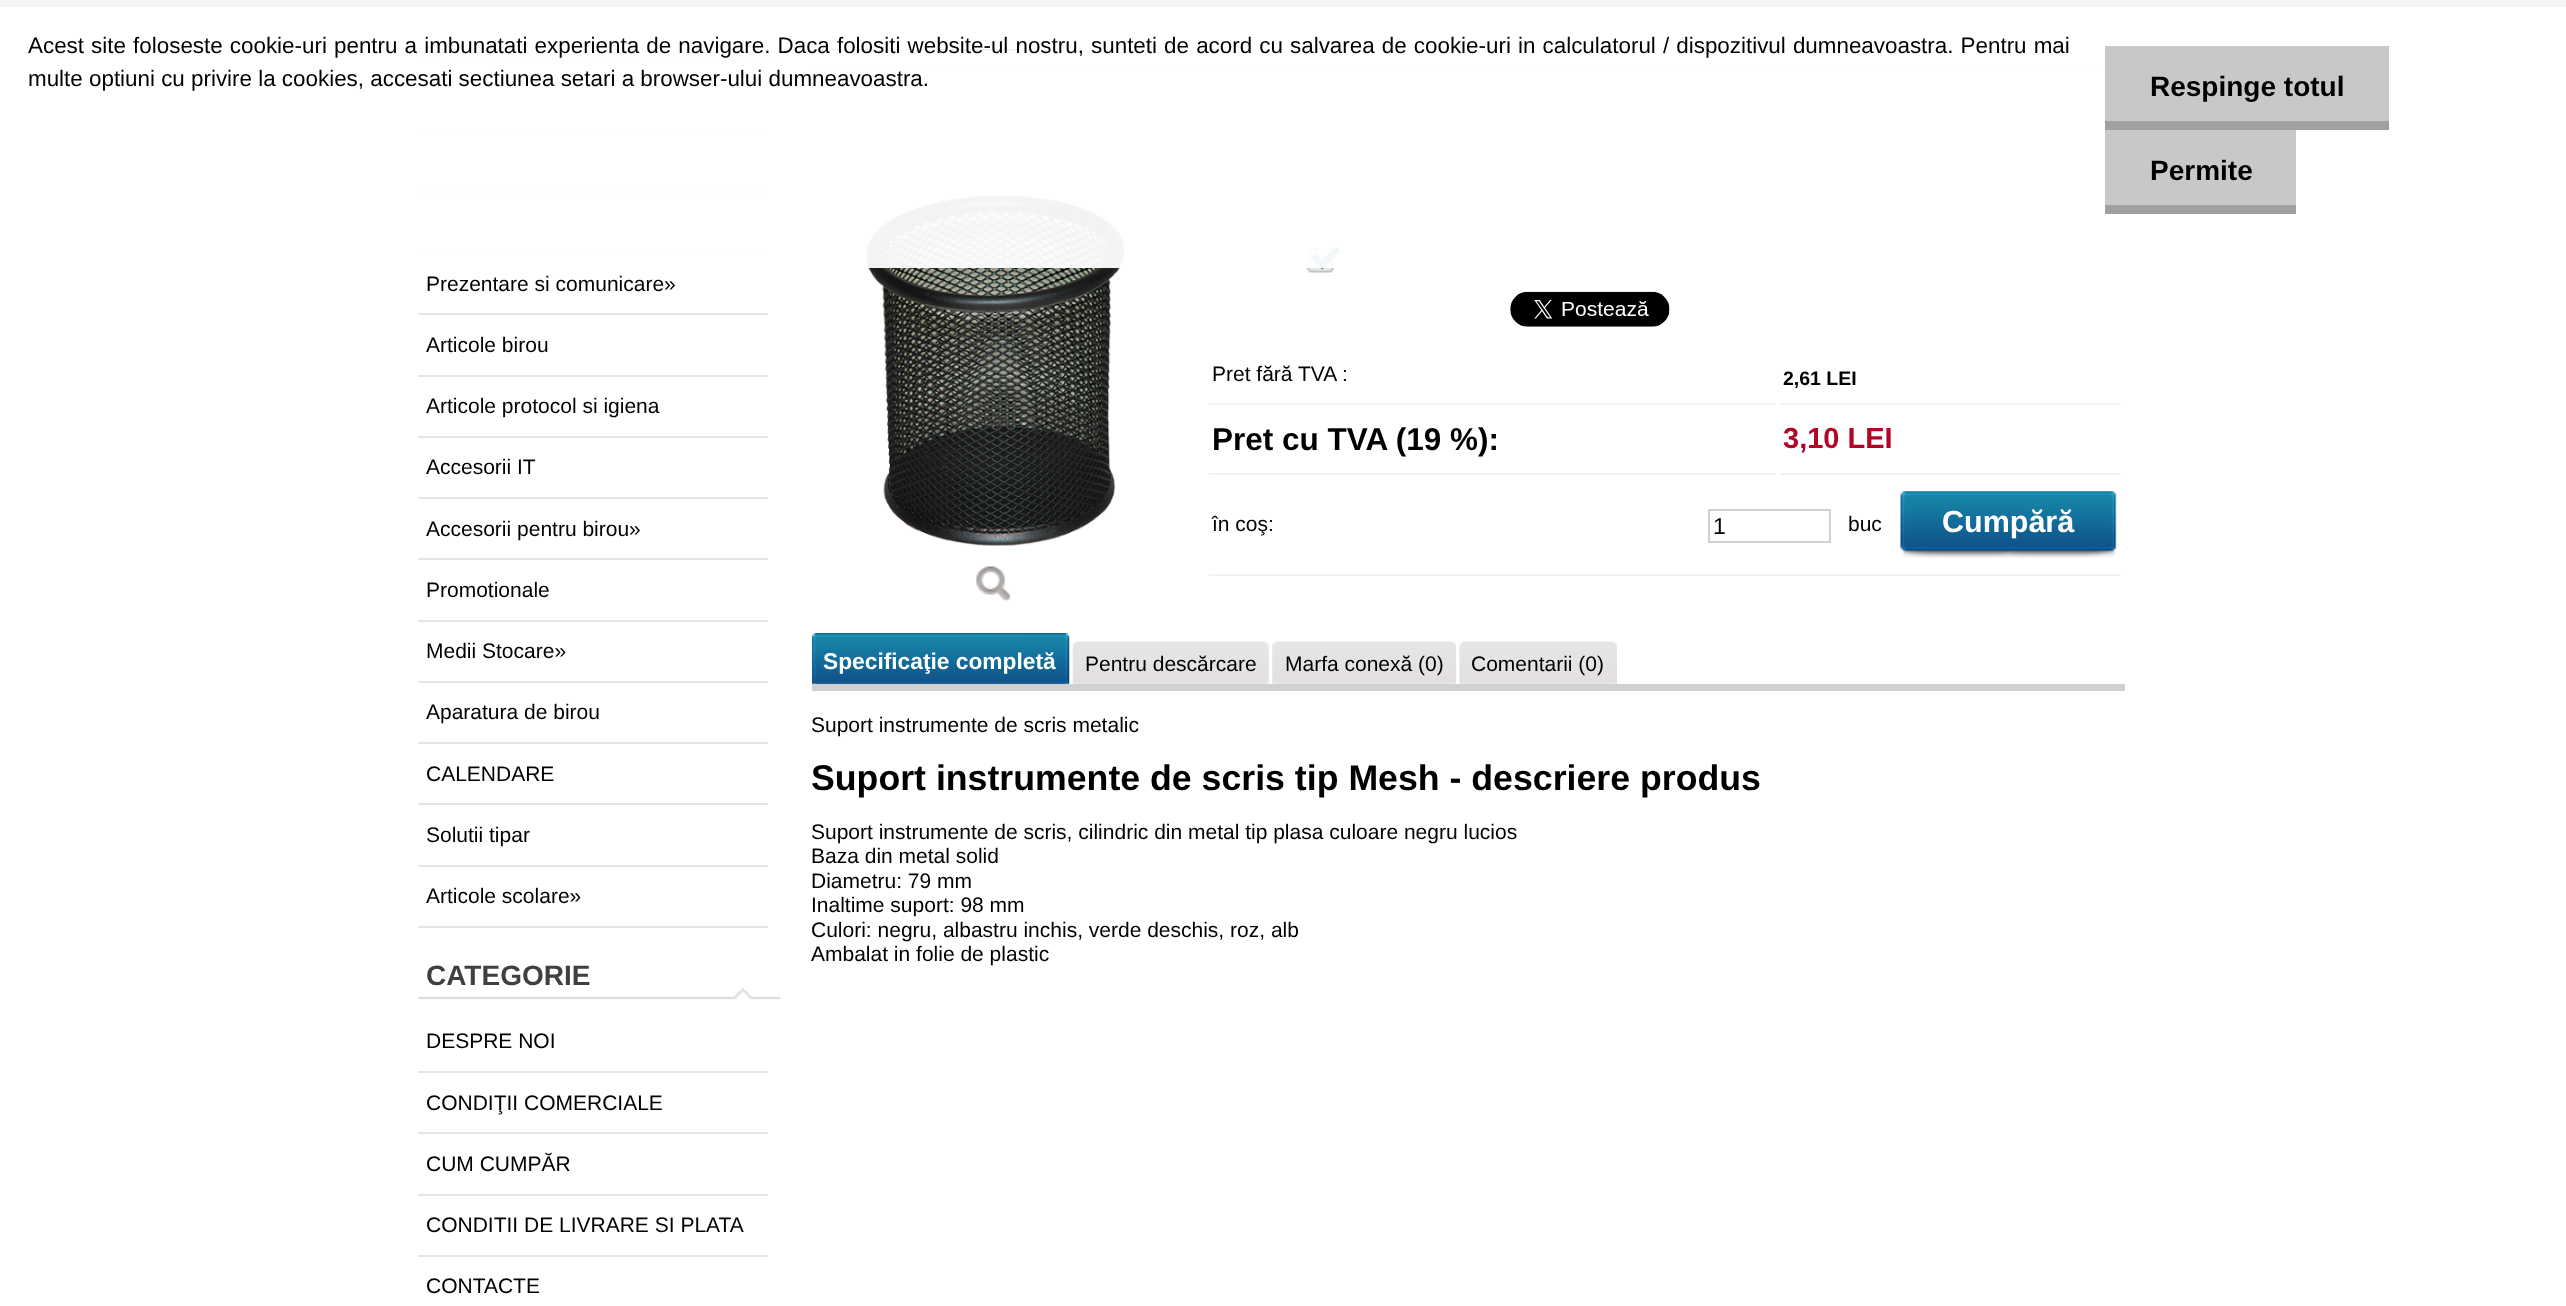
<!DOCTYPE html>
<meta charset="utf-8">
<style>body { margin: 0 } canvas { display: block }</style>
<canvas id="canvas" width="2566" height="1306"></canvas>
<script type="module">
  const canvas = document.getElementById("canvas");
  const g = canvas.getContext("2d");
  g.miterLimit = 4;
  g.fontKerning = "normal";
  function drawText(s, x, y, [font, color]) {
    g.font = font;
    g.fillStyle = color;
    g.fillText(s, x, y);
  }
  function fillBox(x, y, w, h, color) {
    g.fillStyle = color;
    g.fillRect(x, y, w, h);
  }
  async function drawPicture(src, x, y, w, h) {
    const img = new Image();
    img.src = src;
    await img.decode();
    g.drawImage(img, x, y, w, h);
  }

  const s1 = ["22.4px Liberation Sans", "#000000"];
  const s2 = ["bold 28px Liberation Sans", "#000000"];
  const s3 = ["21px Liberation Sans", "#000000"];
  const s4 = ["bold 28px Liberation Sans", "#404040"];
  const s5 = ["bold 19.5px Liberation Sans", "#000000"];
  const s6 = ["bold 31.5px Liberation Sans", "#000000"];
  const s7 = ["bold 29px Liberation Sans", "#B10427"];
  const s8 = ["23px Liberation Sans", "#000000"];
  const s9 = ["bold 30.5px Liberation Sans", "#FFFFFF"];
  const s10 = ["bold 22.75px Liberation Sans", "#FFFFFF"];
  const s11 = ["bold 35.7px Liberation Sans", "#000000"];

  fillBox(0, 0, 2566, 1306, "#FFFFFF");
  fillBox(0, 0, 2566, 7, "#343434");
  await drawPicture("pic1.png", 418, 53, 363, 12);
  fillBox(418, 130, 350, 2, "#E5E5E6");
  fillBox(418, 191, 350, 2, "#E5E5E6");
  fillBox(418, 252, 350, 2, "#E5E5E6");
  g.beginPath();
  g.moveTo(812, 69);
  g.lineTo(2124.5, 69);
  g.strokeStyle = "#D3D5DA";
  g.lineWidth = 1.8;
  g.setLineDash([1.75, 1.75]);
  g.stroke();
  fillBox(812, 49, 88, 2, "#343434");
  fillBox(915, 49, 104, 2, "#343434");
  await drawPicture("pic3.png", 866, 195, 259, 351);
  await drawPicture("pic5.png", 1306, 246, 35, 27);
  fillBox(0, 0, 2566, 268, "rgba(255, 255, 255, 0.95)");
  g.wordSpacing = "0.9px";
  drawText("Acest site foloseste cookie-uri pentru a imbunatati experienta de navigare. Daca folositi website-ul nostru, sunteti de acord cu salvarea de cookie-uri in calculatorul / dispozitivul dumneavoastra. Pentru mai", 28, 53, s1);
  g.wordSpacing = "0px";
  drawText("multe optiuni cu privire la cookies, accesati sectiunea setari a browser-ului dumneavoastra.", 28, 86, s1);
  fillBox(2105, 46, 284, 75, "#C8C8C8");
  fillBox(2105, 121, 284, 9, "#A0A0A0");
  drawText("Respinge totul", 2150, 96, s2);
  fillBox(2105, 130, 191, 75, "#C8C8C8");
  fillBox(2105, 205, 191, 9, "#A0A0A0");
  drawText("Permite", 2150, 180, s2);
  fillBox(418, 313, 350, 2, "#E5E5E6");
  drawText("Prezentare si comunicare»", 426, 291, s3);
  fillBox(418, 375, 350, 2, "#E5E5E6");
  drawText("Articole birou", 426, 352, s3);
  fillBox(418, 436, 350, 2, "#E5E5E6");
  drawText("Articole protocol si igiena", 426, 413, s3);
  fillBox(418, 497, 350, 2, "#E5E5E6");
  drawText("Accesorii IT", 426, 474, s3);
  fillBox(418, 558, 350, 2, "#E5E5E6");
  drawText("Accesorii pentru birou»", 426, 536, s3);
  fillBox(418, 620, 350, 2, "#E5E5E6");
  drawText("Promotionale", 426, 597, s3);
  fillBox(418, 681, 350, 2, "#E5E5E6");
  drawText("Medii Stocare»", 426, 658, s3);
  fillBox(418, 742, 350, 2, "#E5E5E6");
  drawText("Aparatura de birou", 426, 719, s3);
  fillBox(418, 803, 350, 2, "#E5E5E6");
  drawText("CALENDARE", 426, 781, s3);
  fillBox(418, 865, 350, 2, "#E5E5E6");
  drawText("Solutii tipar", 426, 842, s3);
  fillBox(418, 926, 350, 2, "#E5E5E6");
  drawText("Articole scolare»", 426, 903, s3);
  await drawPicture("pic2.png", 418, 988, 363, 12);
  drawText("CATEGORIE", 426, 985, s4);
  fillBox(418, 1071, 350, 2, "#E5E5E6");
  drawText("DESPRE NOI", 426, 1048, s3);
  fillBox(418, 1132, 350, 2, "#E5E5E6");
  drawText("CONDIŢII COMERCIALE", 426, 1110, s3);
  fillBox(418, 1194, 350, 2, "#E5E5E6");
  drawText("CUM CUMPĂR", 426, 1171, s3);
  fillBox(418, 1255, 350, 2, "#E5E5E6");
  drawText("CONDITII DE LIVRARE SI PLATA", 426, 1232, s3);
  drawText("CONTACTE", 426, 1293, s3);
  await drawPicture("pic4.png", 976, 566, 35, 36);
  await drawPicture("pic6.png", 1510, 291, 160, 36);
  fillBox(1209, 403, 567, 2, "#F2F2F2");
  drawText("Pret fără TVA :", 1212, 381, s3);
  fillBox(1780, 403, 341, 2, "#F2F2F2");
  drawText("2,61 LEI", 1783, 385, s5);
  fillBox(1209, 473, 567, 2, "#F2F2F2");
  drawText("Pret cu TVA (19 %):", 1212, 450, s6);
  fillBox(1780, 473, 341, 2, "#F2F2F2");
  drawText("3,10 LEI", 1783, 448, s7);
  fillBox(1209, 574, 912, 2, "#F2F2F2");
  drawText("în coş:", 1212, 531, s3);
  g.strokeStyle = "#D0D0D0";
  g.lineWidth = 2;
  g.setLineDash([]);
  g.strokeRect(1709, 510, 121, 32);
  drawText("1", 1713, 534, s8);
  drawText("buc", 1848, 531, s3);
  await drawPicture("pic7.png", 1900, 491, 217, 67);
  drawText("Cumpără", 1942, 532, s9);
  await drawPicture("pic8.png", 812, 633, 254, 51);
  await drawPicture("pic9.png", 815, 633, 255, 51);
  drawText("Specificaţie completă", 823, 669, s10);
  await drawPicture("pic10.png", 1072, 641, 194, 43);
  await drawPicture("pic11.png", 1076, 641, 193, 43);
  drawText("Pentru descărcare", 1085, 671, s3);
  await drawPicture("pic12.png", 1272, 641, 181, 43);
  await drawPicture("pic13.png", 1276, 641, 180, 43);
  drawText("Marfa conexă (0)", 1285, 671, s3);
  await drawPicture("pic14.png", 1459, 641, 155, 43);
  await drawPicture("pic15.png", 1463, 641, 154, 43);
  drawText("Comentarii (0)", 1471, 671, s3);
  fillBox(812, 684, 1313, 7, "#D0D0D0");
  drawText("Suport instrumente de scris metalic", 811, 732, s3);
  drawText("Suport instrumente de scris tip Mesh - descriere produs", 811, 790, s11);
  drawText("Suport instrumente de scris, cilindric din metal tip plasa culoare negru lucios", 811, 839, s3);
  drawText("Baza din metal solid", 811, 863, s3);
  drawText("Diametru: 79 mm", 811, 888, s3);
  drawText("Inaltime suport: 98 mm", 811, 912, s3);
  drawText("Culori: negru, albastru inchis, verde deschis, roz, alb", 811, 937, s3);
  drawText("Ambalat in folie de plastic", 811, 961, s3);
</script>
